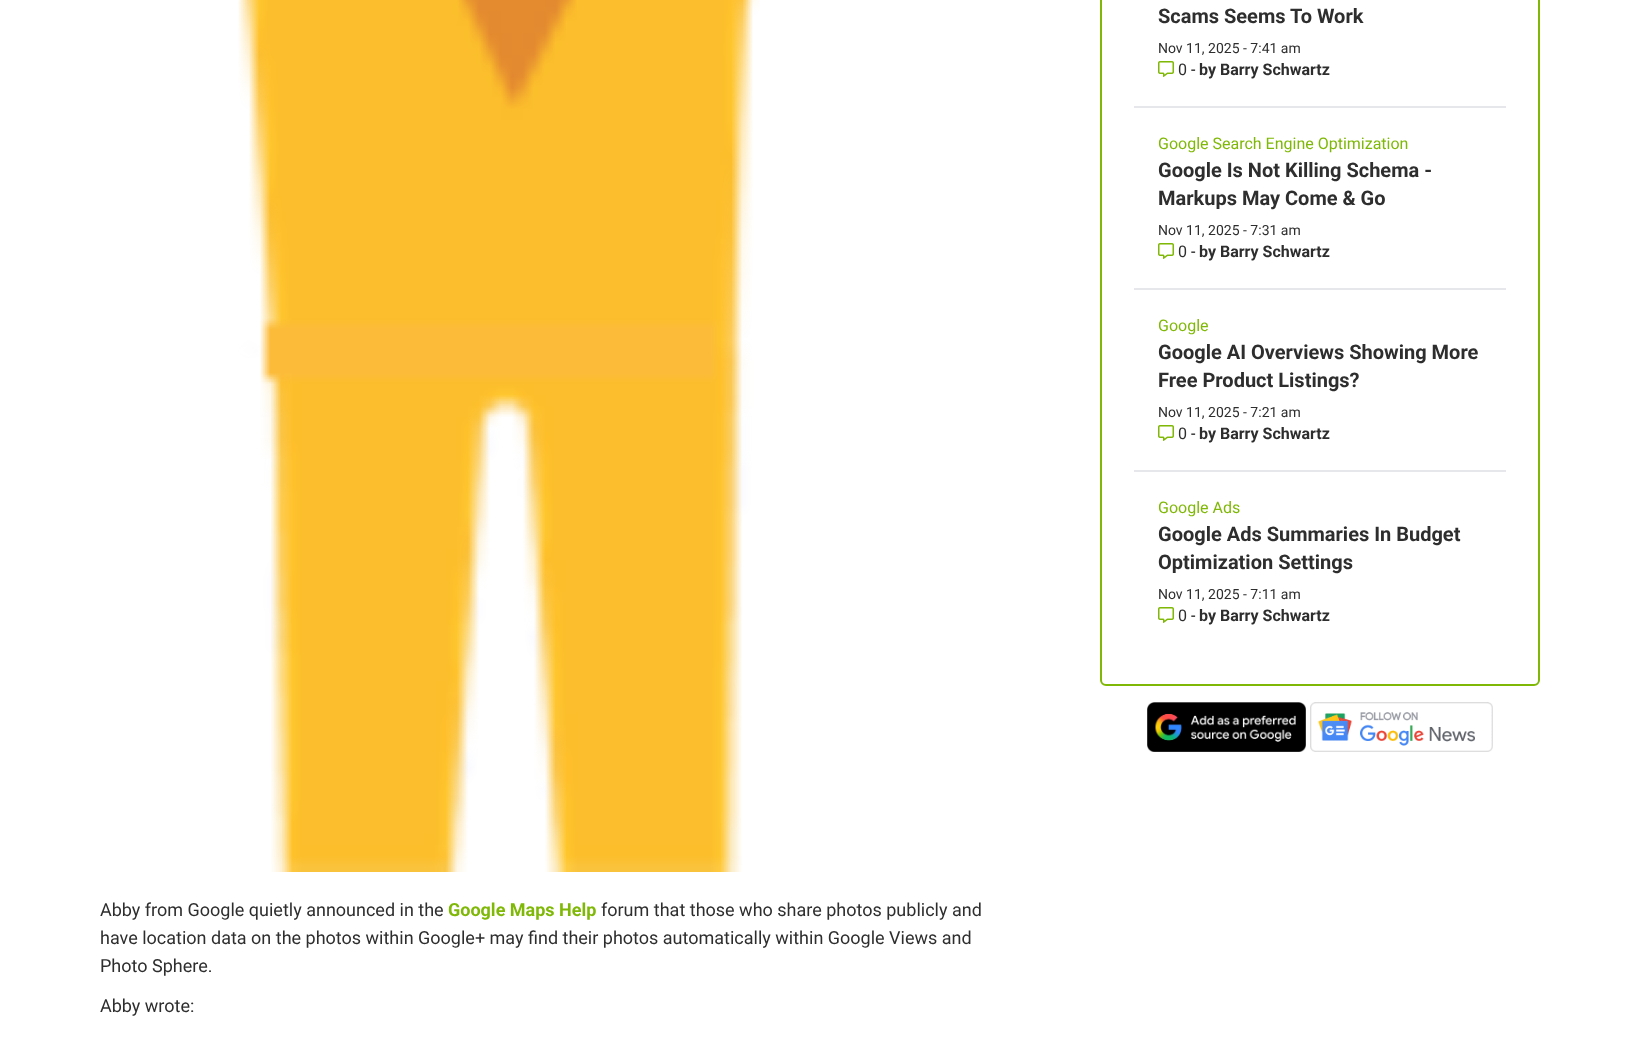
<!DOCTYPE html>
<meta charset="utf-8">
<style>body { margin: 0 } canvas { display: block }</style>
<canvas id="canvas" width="1640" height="1041"></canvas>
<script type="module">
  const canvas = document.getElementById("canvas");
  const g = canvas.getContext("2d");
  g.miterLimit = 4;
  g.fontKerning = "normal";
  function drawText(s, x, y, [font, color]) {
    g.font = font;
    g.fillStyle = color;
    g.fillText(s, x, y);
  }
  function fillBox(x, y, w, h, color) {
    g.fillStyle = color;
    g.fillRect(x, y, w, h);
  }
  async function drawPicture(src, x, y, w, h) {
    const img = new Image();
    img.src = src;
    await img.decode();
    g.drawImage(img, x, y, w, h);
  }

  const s1 = ["bold 20px Roboto", "#2E2E2E"];
  const s2 = ["14px Roboto", "#2E2E2E"];
  const s3 = ["16px Roboto", "#2E2E2E"];
  const s4 = ["16px Roboto", "#000000"];
  const s5 = ["bold 16px Roboto", "#2E2E2E"];
  const s6 = ["16px Roboto", "#7FB806"];
  const s7 = ["18px Roboto", "#2E2E2E"];
  const s8 = ["bold 18px Roboto", "#7FB806"];

  fillBox(0, 0, 1640, 1041, "#FFFFFF");
  g.beginPath();
  g.roundRect(1101, -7, 438, 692, 5);
  g.strokeStyle = "#7FB806";
  g.lineWidth = 2;
  g.stroke();
  fillBox(1134, 106, 372, 2, "#E5E7EB");
  drawText("Scams Seems To Work", 1158, 23, s1);
  drawText("Nov 11, 2025 - 7:41 am", 1158, 53, s2);
  await drawPicture("pic1.png", 1158, 61, 16, 16);
  drawText("0", 1178, 75, s3);
  drawText("-", 1191, 75, s4);
  drawText("by Barry Schwartz", 1199, 75, s5);
  fillBox(1134, 288, 372, 2, "#E5E7EB");
  drawText("Google Search Engine Optimization", 1158, 149, s6);
  drawText("Google Is Not Killing Schema -", 1158, 177, s1);
  drawText("Markups May Come & Go", 1158, 205, s1);
  drawText("Nov 11, 2025 - 7:31 am", 1158, 235, s2);
  await drawPicture("pic1.png", 1158, 243, 16, 16);
  drawText("0", 1178, 257, s3);
  drawText("-", 1191, 257, s4);
  drawText("by Barry Schwartz", 1199, 257, s5);
  fillBox(1134, 470, 372, 2, "#E5E7EB");
  drawText("Google", 1158, 331, s6);
  drawText("Google AI Overviews Showing More", 1158, 359, s1);
  drawText("Free Product Listings?", 1158, 387, s1);
  drawText("Nov 11, 2025 - 7:21 am", 1158, 417, s2);
  await drawPicture("pic1.png", 1158, 425, 16, 16);
  drawText("0", 1178, 439, s3);
  drawText("-", 1191, 439, s4);
  drawText("by Barry Schwartz", 1199, 439, s5);
  drawText("Google Ads", 1158, 513, s6);
  drawText("Google Ads Summaries In Budget", 1158, 541, s1);
  drawText("Optimization Settings", 1158, 569, s1);
  drawText("Nov 11, 2025 - 7:11 am", 1158, 599, s2);
  await drawPicture("pic1.png", 1158, 607, 16, 16);
  drawText("0", 1178, 621, s3);
  drawText("-", 1191, 621, s4);
  drawText("by Barry Schwartz", 1199, 621, s5);
  await drawPicture("pic2.png", 1147, 702, 159, 50);
  await drawPicture("pic3.png", 1310, 702, 183, 50);
  await drawPicture("pic4.png", 238, 0, 522, 872);
  drawText("Abby from Google quietly announced in the", 100, 916, s7);
  drawText("Google Maps Help", 448, 916, s8);
  drawText("forum that those who share photos publicly and", 601, 916, s7);
  drawText("have location data on the photos within Google+ may find their photos automatically within Google Views and", 100, 944, s7);
  drawText("Photo Sphere.", 100, 972, s7);
  drawText("Abby wrote:", 100, 1012, s7);
</script>
